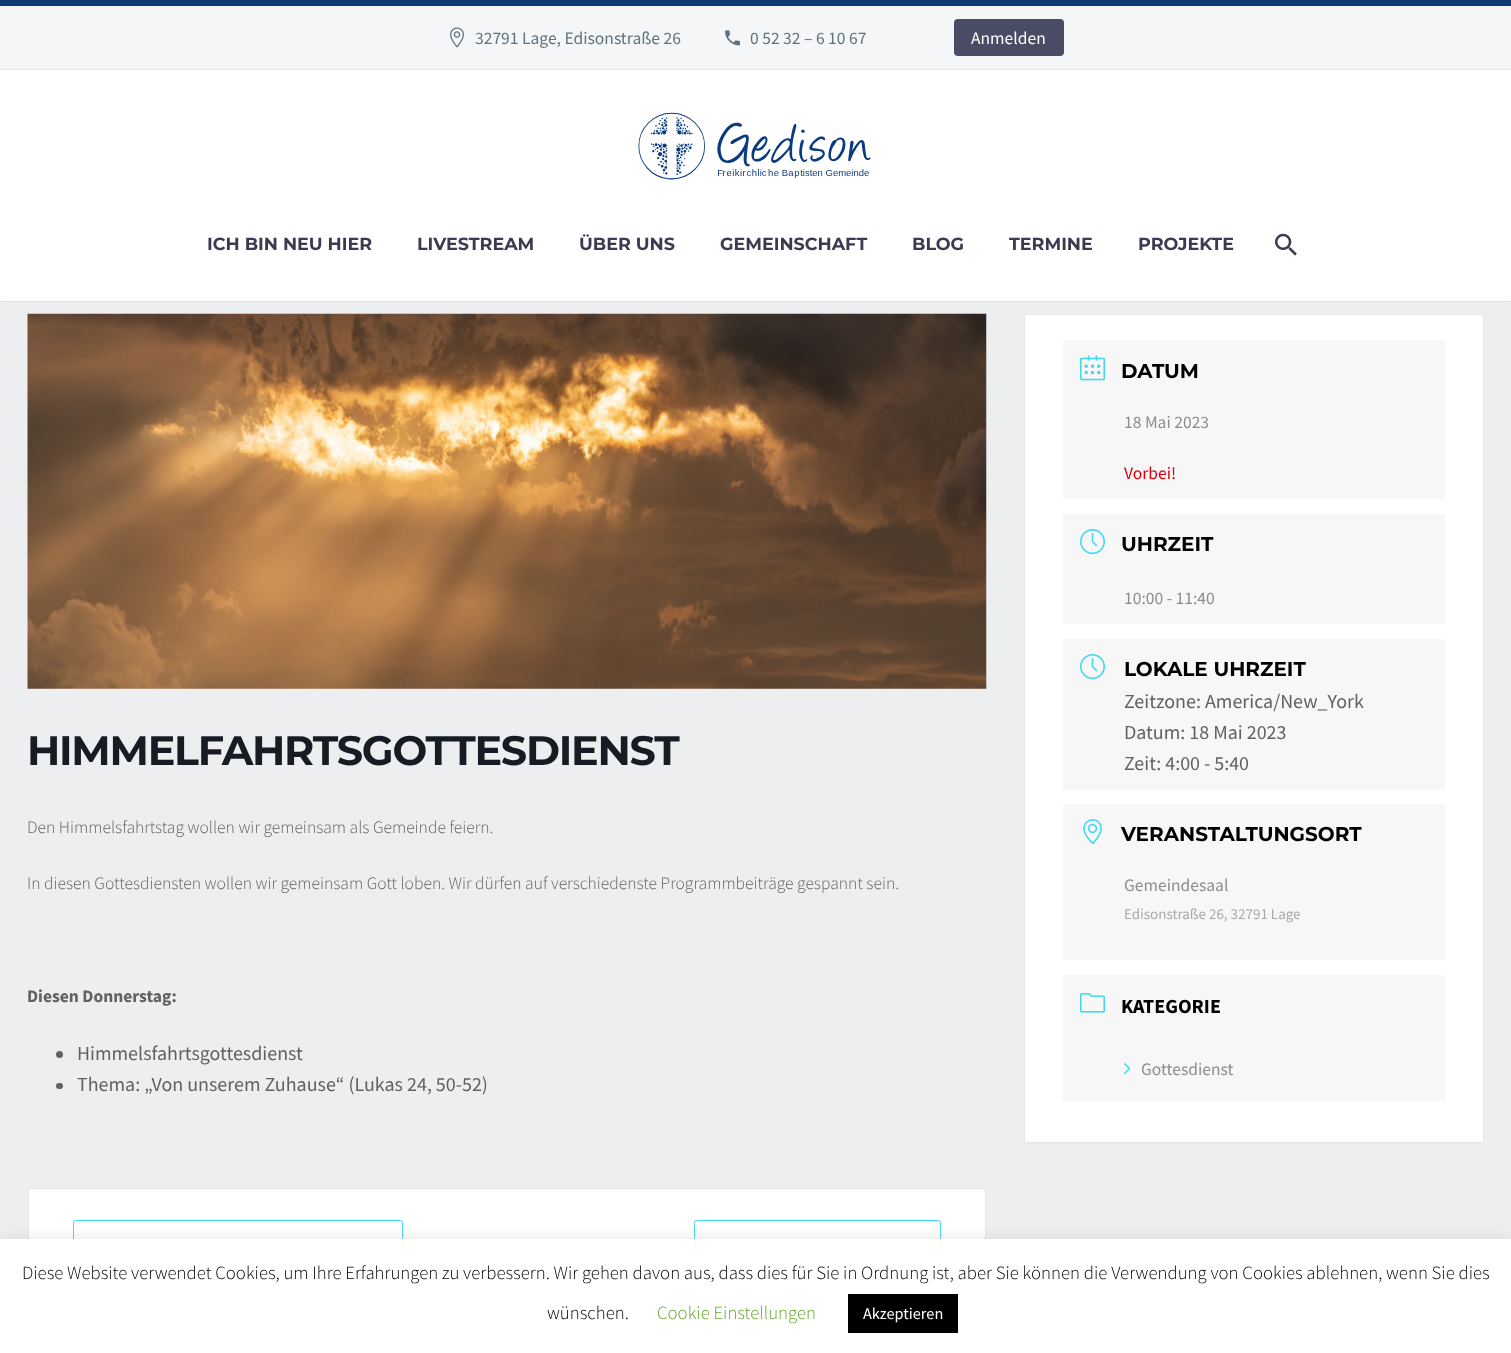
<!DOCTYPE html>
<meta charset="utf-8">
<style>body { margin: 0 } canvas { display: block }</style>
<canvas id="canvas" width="1511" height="1353"></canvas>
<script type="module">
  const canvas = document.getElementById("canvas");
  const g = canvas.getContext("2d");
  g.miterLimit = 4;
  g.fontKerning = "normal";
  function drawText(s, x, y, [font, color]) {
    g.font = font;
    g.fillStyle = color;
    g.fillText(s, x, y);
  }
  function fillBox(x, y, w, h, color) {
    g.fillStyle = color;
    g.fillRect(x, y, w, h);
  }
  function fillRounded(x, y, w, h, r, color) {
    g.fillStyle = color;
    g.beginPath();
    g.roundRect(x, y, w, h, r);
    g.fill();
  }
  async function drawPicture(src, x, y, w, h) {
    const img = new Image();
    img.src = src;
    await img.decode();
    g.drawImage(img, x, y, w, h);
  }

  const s1 = ["17.5px Source Sans Pro", "#5F727F"];
  const s2 = ["17.5px Source Sans Pro", "#FFFFFF"];
  const s3 = ["bold 17.5px Montserrat", "#3C3950"];
  const s4 = ["bold 41.25px Montserrat", "#171C24"];
  const s5 = ["300 17.5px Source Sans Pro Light", "#616161"];
  const s6 = ["bold 17.5px Source Sans Pro", "#616161"];
  const s7 = ["20px Source Sans Pro", "#616161"];
  const s8 = ["bold 20px Montserrat", "#000000"];
  const s9 = ["17.5px Source Sans Pro", "#8D8D8D"];
  const s10 = ["17.5px Source Sans Pro", "#D8000C"];
  const s11 = ["15px Source Sans Pro", "#A9A9A9"];
  const s12 = ["bold 20px Source Sans Pro", "#000000"];
  const s13 = ["300 18.75px Source Sans Pro Light", "#000000"];
  const s14 = ["300 18.75px Source Sans Pro Light", "#62A329"];
  const s15 = ["16.25px Source Sans Pro", "#FFFFFF"];

  fillBox(0, 0, 1511, 1353, "#EDEEEF");
  fillBox(0, 70, 1511, 231, "#FFFFFF");
  g.save();
  g.beginPath();
  g.rect(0, 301, 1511, 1);
  g.clip();
  g.fillStyle = "rgba(56, 69, 84, 0.2)";
  g.filter = "blur(1px)";
  g.beginPath();
  g.rect(0, 70, 1511, 231);
  g.fill();
  g.filter = "none";
  g.restore();
  fillBox(0, 6, 1511, 63, "#F4F6F7");
  fillBox(0, 0, 1511, 6, "#133A71");
  fillBox(0, 69, 1511, 1, "#DFE5E8");
  await drawPicture("pic1.png", 450, 27, 14, 21);
  drawText("32791 Lage, Edisonstraße 26", 475, 44, s1);
  await drawPicture("pic2.png", 725, 30, 15, 16);
  drawText("0 52 32 – 6 10 67", 750, 44, s1);
  fillRounded(954, 19, 110, 37, 4, "#494C64");
  drawText("Anmelden", 971, 44, s2);
  await drawPicture("pic3.png", 638, 112, 233, 68);
  drawText("ICH BIN NEU HIER", 207, 250, s3);
  drawText("LIVESTREAM", 417, 250, s3);
  drawText("ÜBER UNS", 579, 250, s3);
  drawText("GEMEINSCHAFT", 720, 250, s3);
  drawText("BLOG", 912, 250, s3);
  drawText("TERMINE", 1009, 250, s3);
  drawText("PROJEKTE", 1138, 250, s3);
  await drawPicture("pic4.png", 1275, 233, 22, 23);
  await drawPicture("pic5.png", 27, 313, 960, 376);
  g.letterSpacing = "-1.25px";
  drawText("HIMMELFAHRTSGOTTESDIENST", 27, 765, s4);
  g.letterSpacing = "0px";
  drawText("Den Himmelsfahrtstag wollen wir gemeinsam als Gemeinde feiern.", 27, 833, s5);
  drawText("In diesen Gottesdiensten wollen wir gemeinsam Gott loben. Wir dürfen auf verschiedenste Programmbeiträge gespannt sein.", 27, 889, s5);
  drawText("Diesen Donnerstag:", 27, 1002, s6);
  g.fillStyle = "#626262";
  g.beginPath();
  g.arc(59.5, 1054.5, 3.5, 0, Math.PI * 2);
  g.fill();
  drawText("Himmelsfahrtsgottesdienst", 77, 1060, s7);
  fillRounded(56, 1083, 7, 6, 3, "#626262");
  drawText("Thema: „Von unserem Zuhause“ (Lukas 24, 50-52)", 77, 1091, s7);
  fillBox(29, 1189, 956, 50, "#FFFFFF");
  g.strokeStyle = "#E6E6E6";
  g.strokeRect(28.5, 1188.5, 957, 120);
  g.beginPath();
  g.roundRect(73.5, 1220.5, 329, 55, 2);
  g.fill();
  g.strokeStyle = "#40D9F1";
  g.stroke();
  g.beginPath();
  g.roundRect(694.5, 1220.5, 246, 55, 2);
  g.stroke();
  g.fillStyle = "#E9EAEB";
  g.beginPath();
  g.moveTo(1024, 1142);
  g.lineTo(1024, 1145);
  g.lineTo(1484, 1145);
  g.lineTo(1484, 316);
  g.lineTo(1484, 1142);
  g.closePath();
  g.fill();
  g.fillStyle = "#FFFFFF";
  g.beginPath();
  g.rect(1024.5, 314.5, 459, 828);
  g.fill();
  g.strokeStyle = "#E6E6E6";
  g.stroke();
  fillBox(1063, 340, 382, 159, "#F7F7F7");
  await drawPicture("pic6.png", 1080, 355, 25, 26);
  drawText("DATUM", 1121, 378, s8);
  drawText("18 Mai 2023", 1124, 428, s9);
  drawText("Vorbei!", 1124, 479, s10);
  fillBox(1063, 514, 382, 110, "#F7F7F7");
  await drawPicture("pic7.png", 1080, 529, 25, 26);
  drawText("UHRZEIT", 1121, 551, s8);
  drawText("10:00 - 11:40", 1124, 604, s9);
  fillBox(1063, 789, 382, 2, "#FBFBFB");
  fillBox(1063, 639, 382, 150, "#F7F7F7");
  await drawPicture("pic7.png", 1080, 654, 25, 26);
  drawText("LOKALE UHRZEIT", 1124, 676, s8);
  drawText("Zeitzone: America/New_York", 1124, 708, s7);
  drawText("Datum: 18 Mai 2023", 1124, 739, s7);
  drawText("Zeit: 4:00 - 5:40", 1124, 770, s7);
  fillBox(1063, 804, 382, 156, "#F7F7F7");
  await drawPicture("pic8.png", 1083, 819, 19, 25);
  drawText("VERANSTALTUNGSORT", 1121, 841, s8);
  drawText("Gemeindesaal", 1124, 891, s9);
  drawText("Edisonstraße 26, 32791 Lage", 1124, 919, s11);
  fillBox(1063, 975, 382, 126, "#F7F7F7");
  await drawPicture("pic9.png", 1080, 993, 25, 20);
  drawText("KATEGORIE", 1121, 1013, s12);
  await drawPicture("pic10.png", 1123, 1063, 8, 12);
  drawText("Gottesdienst", 1141, 1075, s9);
  g.fillStyle = "rgba(172, 171, 171, 0.3)";
  g.filter = "blur(6px)";
  g.beginPath();
  g.rect(0, 1238, 1511, 115);
  g.fill();
  g.filter = "none";
  fillBox(0, 1239, 1511, 114, "#FFFFFF");
  drawText("Diese Website verwendet Cookies, um Ihre Erfahrungen zu verbessern. Wir gehen davon aus, dass dies für Sie in Ordnung ist, aber Sie können die Verwendung von Cookies ablehnen, wenn Sie dies", 22, 1279, s13);
  drawText("wünschen.", 547, 1319, s13);
  drawText("Cookie Einstellungen", 657, 1319, s14);
  fillBox(848, 1294, 110, 39, "#000000");
  drawText("Akzeptieren", 863, 1319, s15);
</script>
